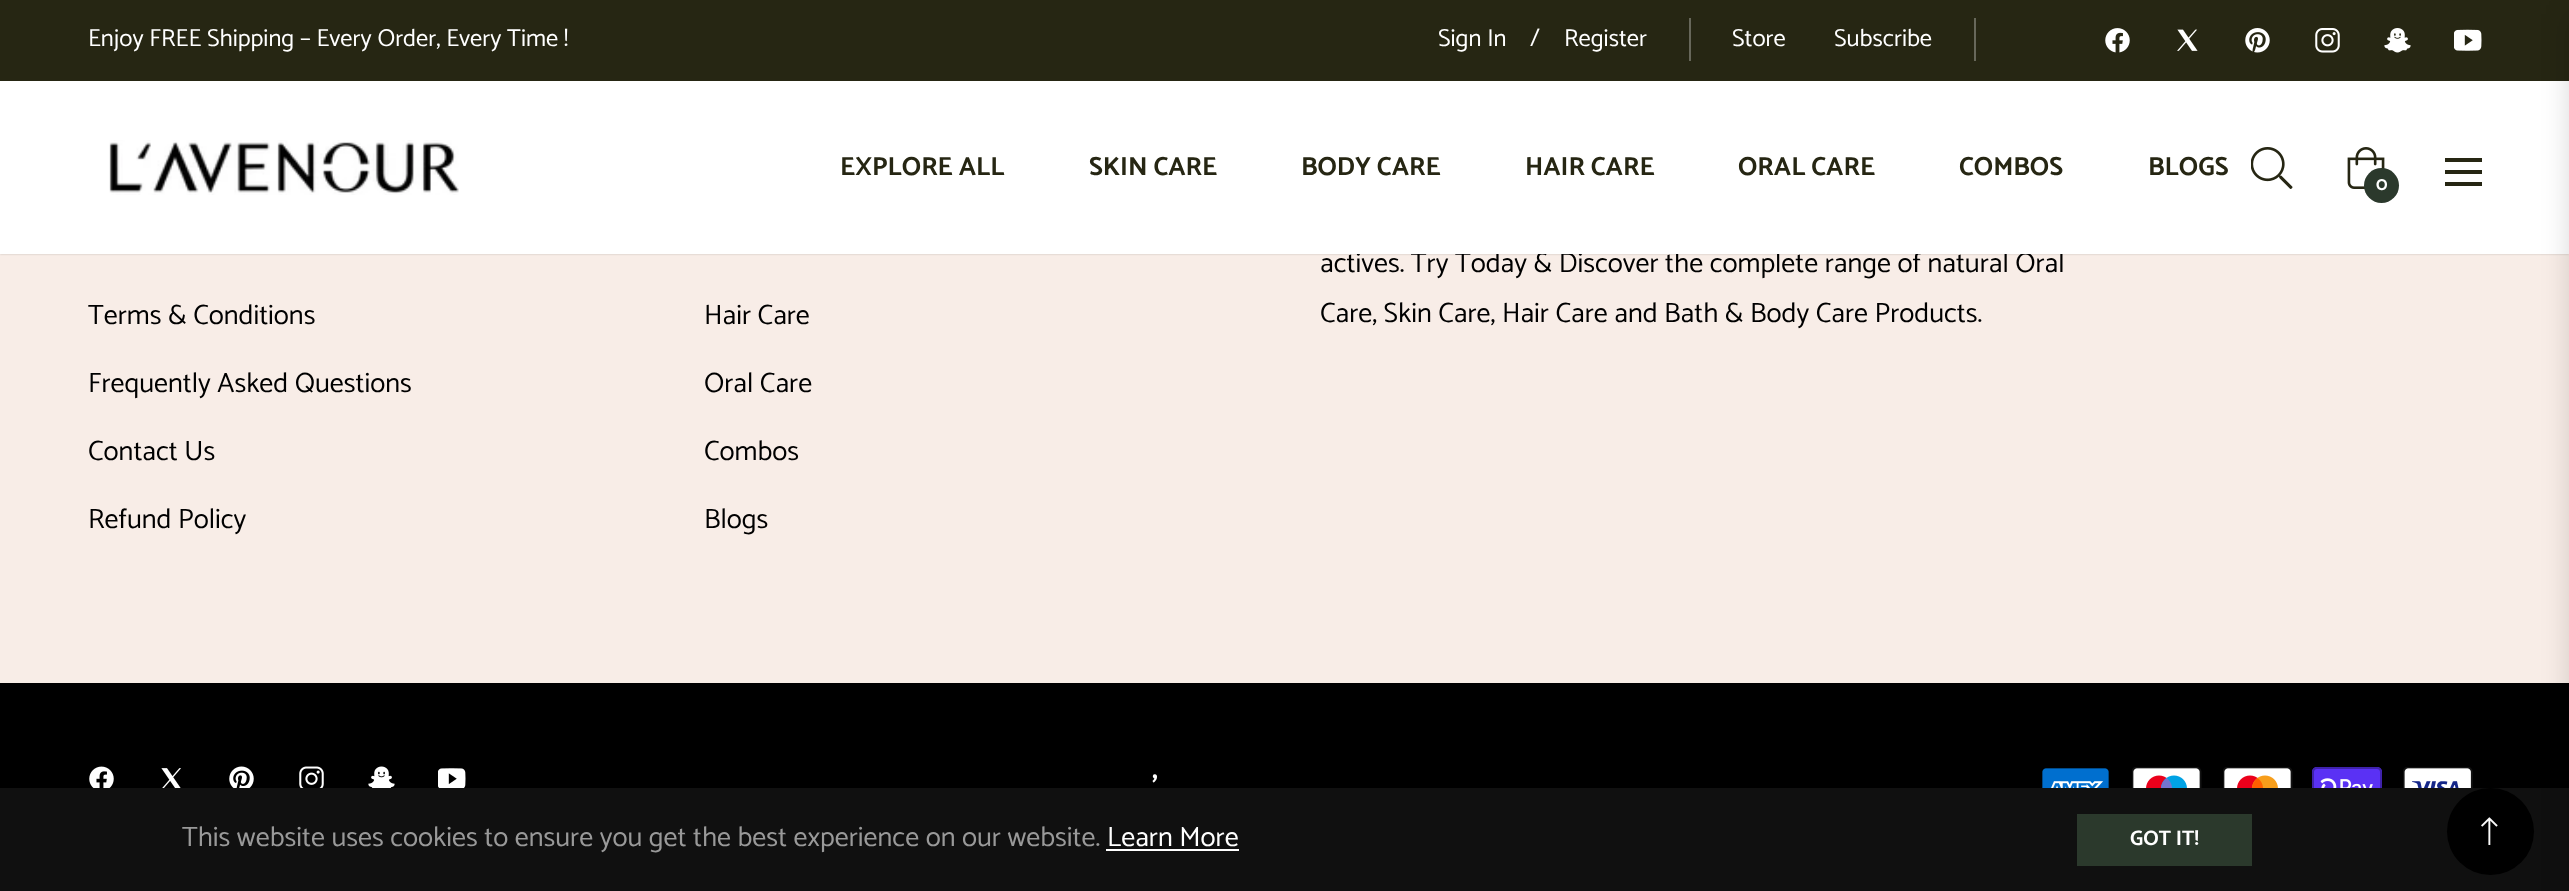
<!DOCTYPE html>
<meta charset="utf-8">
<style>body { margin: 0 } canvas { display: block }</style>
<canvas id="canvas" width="2569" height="891"></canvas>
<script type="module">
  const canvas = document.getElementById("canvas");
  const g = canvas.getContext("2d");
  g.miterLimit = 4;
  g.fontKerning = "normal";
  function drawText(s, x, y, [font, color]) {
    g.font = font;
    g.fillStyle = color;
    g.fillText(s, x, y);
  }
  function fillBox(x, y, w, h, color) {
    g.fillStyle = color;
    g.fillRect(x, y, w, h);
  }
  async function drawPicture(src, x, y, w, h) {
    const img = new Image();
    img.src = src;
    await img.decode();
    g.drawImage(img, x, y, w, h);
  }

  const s1 = ["28px Catamaran", "#000000"];
  const s2 = ["24.5px Catamaran", "#FFFFFF"];
  const s3 = ["bold 26.25px Catamaran", "#262613"];
  const s4 = ["bold 19px Catamaran", "#FFFFFF"];
  const s5 = ["bold 28px Catamaran", "#FFFFFF"];
  const s6 = ["28px Catamaran", "#999999"];
  const s7 = ["28px Catamaran", "#FFFFFF"];
  const s8 = ["bold 21px Catamaran", "#FFFFFF"];

  fillBox(0, 0, 2569, 891, "#F8EDE7");
  g.fillStyle = "rgba(0, 0, 0, 0.2)";
  g.filter = "blur(1px)";
  g.beginPath();
  g.rect(0, 0, 2569, 254);
  g.fill();
  g.filter = "none";
  drawText("actives. Try Today & Discover the complete range of natural Oral", 1320, 272, s1);
  fillBox(0, 81, 2569, 173, "#FFFFFF");
  fillBox(0, 0, 2569, 81, "#262613");
  drawText("Enjoy FREE Shipping – Every Order, Every Time !", 88, 46, s2);
  fillBox(1689, 18, 2, 43, "#67675A");
  drawText("Sign In", 1438, 46, s2);
  drawText("/", 1530, 46, s2);
  drawText("Register", 1564, 46, s2);
  fillBox(1974, 18, 2, 43, "#67675A");
  drawText("Store", 1732, 46, s2);
  drawText("Subscribe", 1834, 46, s2);
  await drawPicture("pic1.png", 2105, 28, 25, 25);
  await drawPicture("pic2.png", 2177, 29, 21, 22);
  await drawPicture("pic3.png", 2245, 28, 25, 25);
  await drawPicture("pic4.png", 2315, 28, 25, 25);
  await drawPicture("pic5.png", 2384, 28, 27, 25);
  await drawPicture("pic6.png", 2454, 29, 28, 22);
  await drawPicture("pic7.png", 109, 140, 350, 55);
  drawText("EXPLORE ALL", 840, 175, s3);
  drawText("SKIN CARE", 1089, 175, s3);
  drawText("BODY CARE", 1301, 175, s3);
  drawText("HAIR CARE", 1525, 175, s3);
  drawText("ORAL CARE", 1738, 175, s3);
  drawText("COMBOS", 1959, 175, s3);
  drawText("BLOGS", 2148, 175, s3);
  await drawPicture("pic8.png", 2251, 147, 42, 42);
  await drawPicture("pic9.png", 2347, 147, 38, 42);
  g.fillStyle = "#2B392C";
  g.beginPath();
  g.arc(2381.5, 185.5, 17.5, 0, Math.PI * 2);
  g.fill();
  drawText("0", 2376, 190, s4);
  fillBox(0, 683, 2569, 105, "#000000");
  fillBox(0, 788, 2569, 103, "#101010");
  g.fillStyle = "rgba(0, 0, 0, 0.15)";
  g.filter = "blur(14px)";
  g.beginPath();
  g.rect(2569, 14, 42, 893);
  g.fill();
  g.filter = "none";
  fillBox(2445, 158, 37, 4, "#262613");
  fillBox(2445, 170, 37, 4, "#262613");
  fillBox(2445, 182, 37, 4, "#262613");
  drawText("Care, Skin Care, Hair Care and Bath & Body Care Products.", 1320, 322, s1);
  drawText("Terms & Conditions", 88, 324, s1);
  drawText("Frequently Asked Questions", 88, 392, s1);
  drawText("Contact Us", 88, 460, s1);
  drawText("Refund Policy", 88, 528, s1);
  drawText("Hair Care", 704, 324, s1);
  drawText("Oral Care", 704, 392, s1);
  drawText("Combos", 704, 460, s1);
  drawText("Blogs", 704, 528, s1);
  await drawPicture("pic10.png", 89, 766, 25, 22);
  await drawPicture("pic11.png", 161, 768, 20, 20);
  await drawPicture("pic12.png", 229, 766, 25, 22);
  await drawPicture("pic13.png", 299, 766, 25, 22);
  await drawPicture("pic14.png", 368, 766, 27, 22);
  await drawPicture("pic15.png", 438, 768, 28, 20);
  drawText("’", 1152, 795, s5);
  await drawPicture("pic16.png", 2042, 768, 67, 20);
  await drawPicture("pic17.png", 2132, 767, 70, 21);
  await drawPicture("pic18.png", 2223, 767, 70, 21);
  await drawPicture("pic19.png", 2312, 767, 70, 21);
  await drawPicture("pic20.png", 2403, 767, 70, 21);
  drawText("This website uses cookies to ensure you get the best experience on our website.", 182, 846, s6);
  drawText("Learn More", 1107, 846, s7);
  fillBox(1106, 849, 133, 2, "#FFFFFF");
  fillBox(2077, 814, 175, 52, "#2B392C");
  drawText("GOT IT!", 2130, 845, s8);
  g.fillStyle = "#000000";
  g.beginPath();
  g.arc(2490.5, 831.5, 43.5, 0, Math.PI * 2);
  g.fill();
  await drawPicture("pic21.png", 2481, 817, 17, 28);
</script>
